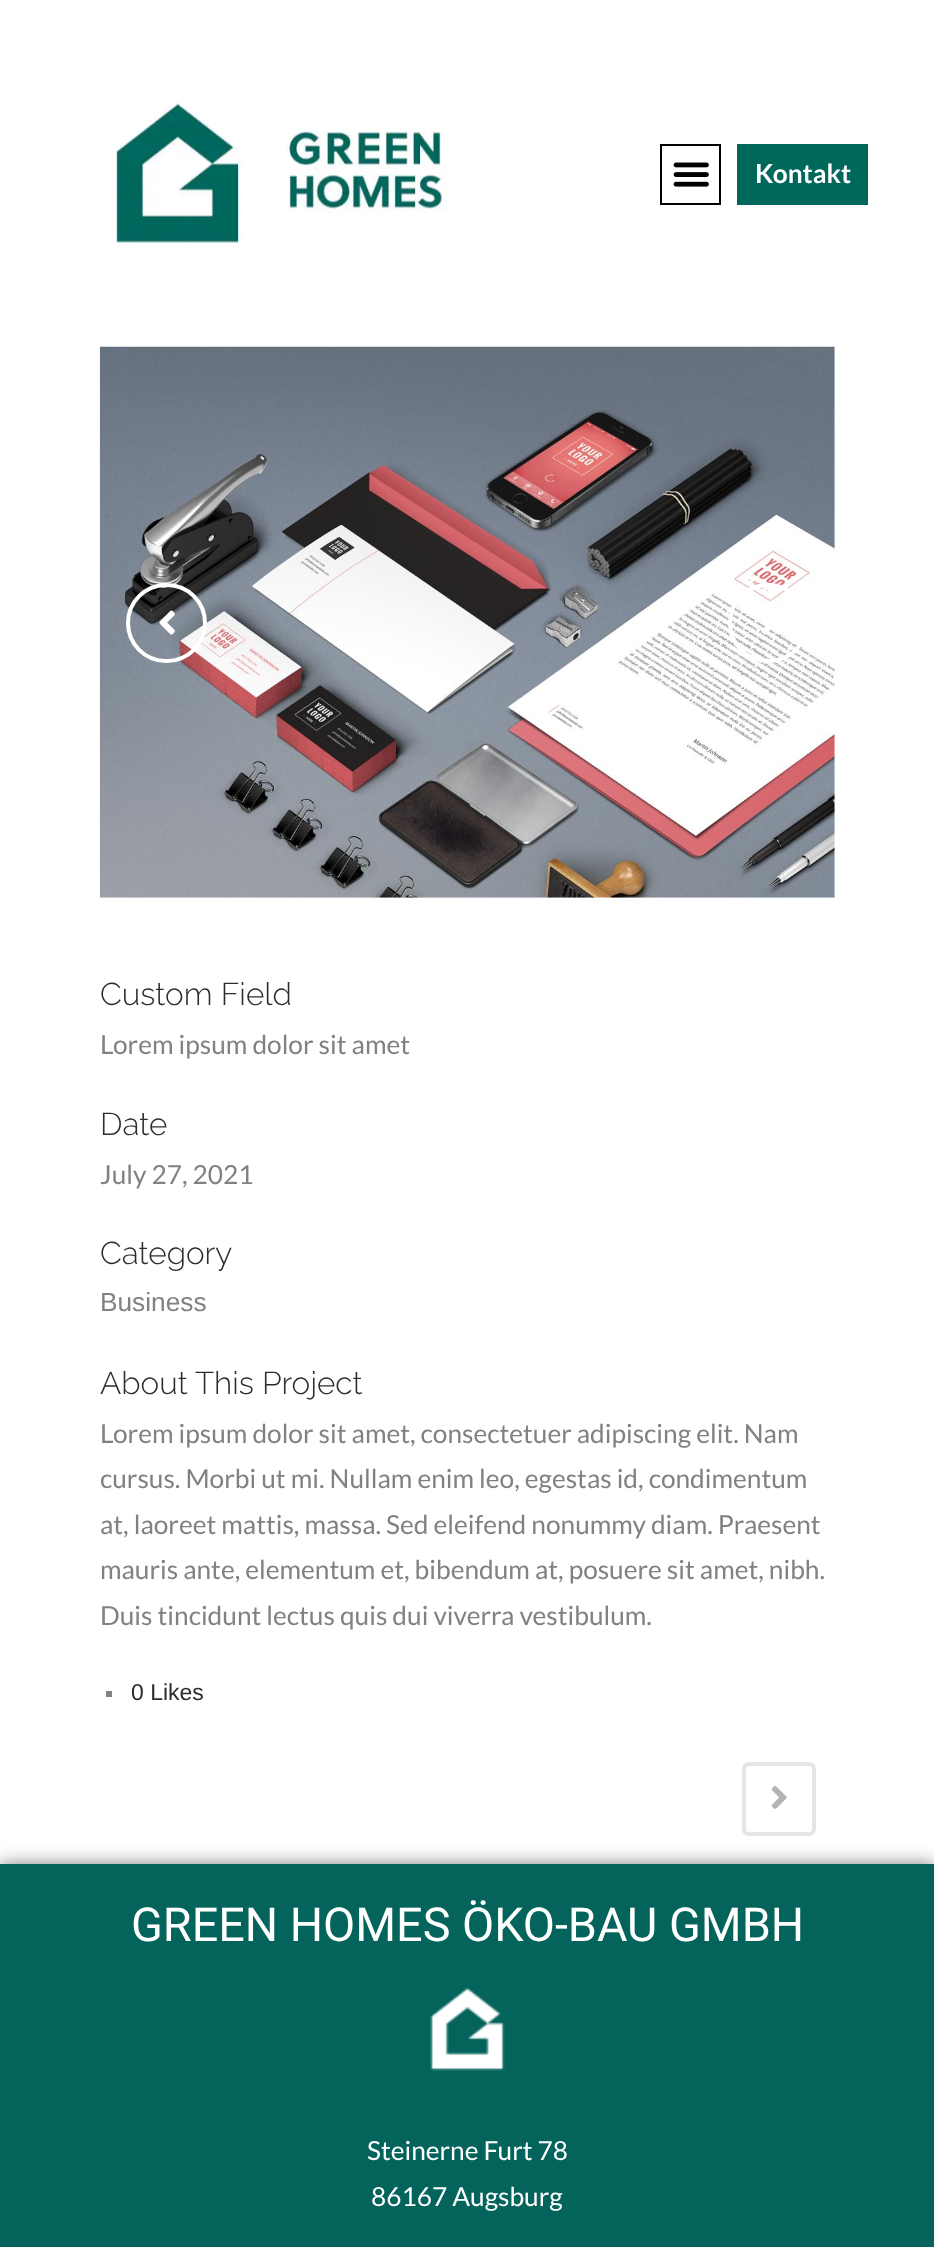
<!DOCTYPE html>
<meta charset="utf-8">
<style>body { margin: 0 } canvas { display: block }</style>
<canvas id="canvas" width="934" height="2247"></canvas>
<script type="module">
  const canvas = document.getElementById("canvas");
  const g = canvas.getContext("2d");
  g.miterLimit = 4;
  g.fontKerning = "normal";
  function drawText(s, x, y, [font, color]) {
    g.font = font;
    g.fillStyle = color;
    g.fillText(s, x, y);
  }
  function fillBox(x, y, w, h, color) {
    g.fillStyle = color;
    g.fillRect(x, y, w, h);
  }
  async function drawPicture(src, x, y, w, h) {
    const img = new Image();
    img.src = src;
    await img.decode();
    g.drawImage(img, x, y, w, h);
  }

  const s1 = ["bold 26.25px Lato", "#FFFFFF"];
  const s2 = ["300 31.5px Raleway", "#2D2D2D"];
  const s3 = ["26.25px Lato", "#818181"];
  const s4 = ["26.25px Liberation Sans", "#818181"];
  const s5 = ["23px Liberation Sans", "#2D2D2D"];
  const s6 = ["46.75px Roboto", "#FFFFFF"];
  const s7 = ["26.25px Lato", "#FFFFFF"];

  fillBox(0, 0, 934, 2247, "#FFFFFF");
  await drawPicture("pic1.png", 112, 102, 335, 142);
  g.strokeStyle = "#000000";
  g.lineWidth = 2;
  g.strokeRect(661, 145, 59, 59);
  await drawPicture("pic2.png", 673, 162, 36, 25);
  fillBox(737, 144, 131, 61, "#00685B");
  drawText("Kontakt", 755, 183, s1);
  await drawPicture("pic3.png", 99, 346, 736, 552);
  g.beginPath();
  g.roundRect(128, 585, 77, 76, 38);
  g.strokeStyle = "#FFFFFF";
  g.lineWidth = 4;
  g.stroke();
  await drawPicture("pic4.png", 159, 610, 16, 25);
  g.beginPath();
  g.roundRect(730, 585, 77, 76, 38);
  g.stroke();
  await drawPicture("pic5.png", 761, 625, 12, 10);
  drawText("Custom Field", 100, 1005, s2);
  drawText("Lorem ipsum dolor sit amet", 100, 1054, s3);
  drawText("Date", 100, 1135, s2);
  drawText("July 27, 2021", 100, 1184, s3);
  drawText("Category", 100, 1264, s2);
  drawText("Business", 100, 1311, s4);
  drawText("About This Project", 100, 1394, s2);
  drawText("Lorem ipsum dolor sit amet, consectetuer adipiscing elit. Nam", 100, 1443, s3);
  drawText("cursus. Morbi ut mi. Nullam enim leo, egestas id, condimentum", 100, 1488, s3);
  drawText("at, laoreet mattis, massa. Sed eleifend nonummy diam. Praesent", 100, 1534, s3);
  drawText("mauris ante, elementum et, bibendum at, posuere sit amet, nibh.", 100, 1579, s3);
  drawText("Duis tincidunt lectus quis dui viverra vestibulum.", 100, 1625, s3);
  fillBox(106, 1691, 6, 6, "#818181");
  drawText("0 Likes", 131, 1700, s5);
  g.beginPath();
  g.roundRect(744, 1764, 70, 70, 5);
  g.strokeStyle = "#E5E5E5";
  g.stroke();
  await drawPicture("pic6.png", 771, 1786, 16, 23);
  g.fillStyle = "rgba(0, 0, 0, 0.5)";
  g.filter = "blur(9px)";
  g.beginPath();
  g.rect(0, 1864, 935, 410);
  g.fill();
  g.filter = "none";
  fillBox(0, 1864, 934, 383, "#04645C");
  drawText("GREEN HOMES ÖKO-BAU GMBH", 131, 1941, s6);
  await drawPicture("pic7.png", 430, 1987, 75, 84);
  drawText("Steinerne Furt 78", 367, 2160, s7);
  drawText("86167 Augsburg", 371, 2206, s7);
</script>
